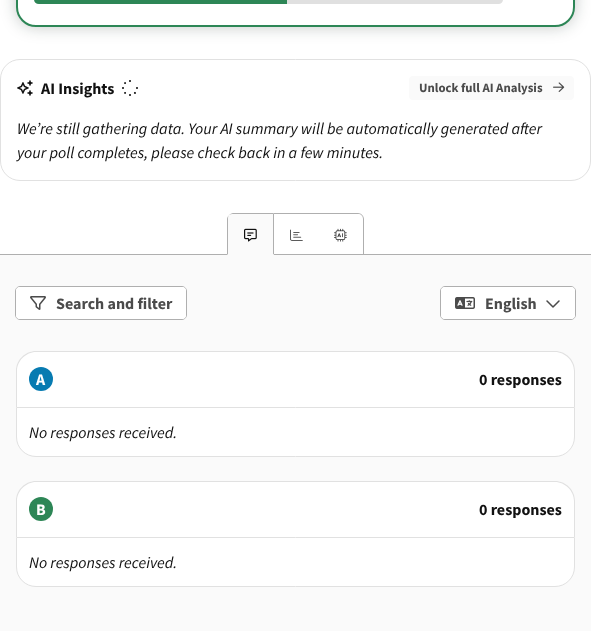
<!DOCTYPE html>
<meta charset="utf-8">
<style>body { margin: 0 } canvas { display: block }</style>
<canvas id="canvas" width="591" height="631"></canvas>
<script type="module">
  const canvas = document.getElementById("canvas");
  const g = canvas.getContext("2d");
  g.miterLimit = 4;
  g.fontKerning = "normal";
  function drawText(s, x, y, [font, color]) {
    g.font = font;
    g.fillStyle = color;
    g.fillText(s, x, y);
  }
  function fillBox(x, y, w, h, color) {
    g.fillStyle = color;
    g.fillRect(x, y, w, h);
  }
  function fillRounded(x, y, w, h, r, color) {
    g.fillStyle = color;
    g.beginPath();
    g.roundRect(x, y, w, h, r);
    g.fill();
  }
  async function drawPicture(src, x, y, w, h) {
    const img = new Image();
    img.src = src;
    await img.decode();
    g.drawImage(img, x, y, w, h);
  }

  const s1 = ["bold 16px Source Sans Pro", "#111111"];
  const s2 = ["bold 12.75px Source Sans Pro", "#4B4B4B"];
  const s3 = ["italic 16px Source Sans Pro", "#111111"];
  const s4 = ["bold 16px Source Sans Pro", "#4B4B4B"];
  const s5 = ["bold 16px Source Sans Pro", "#FFFFFF"];

  fillBox(0, 0, 591, 631, "#FFFFFF");
  g.fillStyle = "rgba(9, 27, 17, 0.24)";
  g.filter = "blur(8px)";
  g.beginPath();
  g.roundRect(16, -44, 559, 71, 20);
  g.fill();
  g.filter = "none";
  g.fillStyle = "#FFFFFF";
  g.beginPath();
  g.roundRect(17, -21, 557, 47, 19);
  g.fill();
  g.strokeStyle = "#2D8656";
  g.lineWidth = 2;
  g.stroke();
  fillRounded(34, -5, 469, 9, 5, "#E0E0E0");
  g.fillStyle = "#2D8656";
  g.beginPath();
  g.moveTo(39, -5);
  g.lineTo(287, -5);
  g.lineTo(287, 4);
  g.lineTo(39, 4);
  g.bezierCurveTo(36, 4, 34, 2, 34, -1);
  g.lineTo(34, 0);
  g.bezierCurveTo(34, -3, 36, -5, 39, -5);
  g.closePath();
  g.fill();
  g.beginPath();
  g.roundRect(0.5, 59.5, 590, 121, 19.5);
  g.strokeStyle = "#E1E1E1";
  g.lineWidth = 1;
  g.stroke();
  await drawPicture("pic1.png", 17, 80, 16, 16);
  drawText("AI Insights", 41, 94, s1);
  await drawPicture("pic2.png", 122, 80, 16, 16);
  fillRounded(409, 76, 165, 24, 4, "#FAFAFA");
  drawText("Unlock full AI Analysis", 419, 92, s2);
  await drawPicture("pic3.png", 553, 82, 12, 10);
  drawText("We’re still gathering data. Your AI summary will be automatically generated after", 17, 134, s3);
  drawText("your poll completes, please check back in a few minutes.", 17, 158, s3);
  fillBox(0, 254, 591, 1, "#AFAFAF");
  g.fillStyle = "#FAFAFA";
  g.beginPath();
  g.roundRect(227, 213, 47, 42, [6, 0, 0, 0]);
  g.fill();
  g.fillStyle = "#AFAFAF";
  g.beginPath();
  g.moveTo(233, 213);
  g.bezierCurveTo(232, 213, 230, 214, 229, 215);
  g.bezierCurveTo(230, 214, 232, 214, 233, 214);
  g.lineTo(273, 214);
  g.lineTo(274, 213);
  g.closePath();
  g.fill();
  g.beginPath();
  g.moveTo(274, 213);
  g.lineTo(273, 214);
  g.lineTo(273, 254);
  g.lineTo(274, 255);
  g.closePath();
  g.fill();
  g.fillStyle = "#FAFAFA";
  g.beginPath();
  g.moveTo(274, 255);
  g.lineTo(273, 254);
  g.lineTo(228, 254);
  g.lineTo(227, 255);
  g.closePath();
  g.fill();
  g.fillStyle = "#AFAFAF";
  g.beginPath();
  g.moveTo(227, 255);
  g.lineTo(228, 254);
  g.lineTo(228, 219);
  g.bezierCurveTo(228, 218, 228, 216, 229, 215);
  g.bezierCurveTo(228, 216, 227, 218, 227, 219);
  g.closePath();
  g.fill();
  await drawPicture("pic4.png", 244, 228, 13, 14);
  fillBox(274, 213, 44, 1, "#AFAFAF");
  await drawPicture("pic5.png", 290, 229, 13, 12);
  g.beginPath();
  g.moveTo(318, 213);
  g.lineTo(358, 213);
  g.bezierCurveTo(361, 213, 364, 216, 364, 219);
  g.lineTo(364, 255);
  g.lineTo(318, 255);
  g.closePath();
  g.moveTo(318, 214);
  g.lineTo(358, 214);
  g.bezierCurveTo(361, 214, 363, 216, 363, 219);
  g.lineTo(363, 254);
  g.lineTo(318, 254);
  g.closePath();
  g.fill("evenodd");
  await drawPicture("pic6.png", 334, 228, 13, 14);
  fillBox(0, 255, 591, 376, "#FAFAFA");
  g.beginPath();
  g.roundRect(15.5, 286.5, 171, 33, 4.5);
  g.strokeStyle = "#AFAFAF";
  g.stroke();
  fillRounded(16, 287, 170, 32, 4, "#FFFFFF");
  await drawPicture("pic7.png", 30, 296, 16, 14);
  drawText("Search and filter", 56, 309, s4);
  g.beginPath();
  g.roundRect(440.5, 286.5, 135, 33, 4.5);
  g.stroke();
  fillRounded(441, 287, 134, 32, 4, "#FFFFFF");
  await drawPicture("pic8.png", 455, 297, 20, 12);
  drawText("English", 485, 309, s4);
  await drawPicture("pic9.png", 546, 300, 14, 8);
  g.fillStyle = "#FFFFFF";
  g.beginPath();
  g.roundRect(16, 351, 559, 56, [20, 20, 0, 0]);
  g.fill();
  g.fillStyle = "#E1E1E1";
  g.beginPath();
  g.moveTo(36, 351);
  g.lineTo(555, 351);
  g.bezierCurveTo(566, 351, 575, 360, 575, 371);
  g.lineTo(575, 407);
  g.lineTo(16, 407);
  g.lineTo(16, 371);
  g.bezierCurveTo(16, 360, 25, 351, 36, 351);
  g.closePath();
  g.moveTo(36, 352);
  g.lineTo(555, 352);
  g.bezierCurveTo(565, 352, 574, 361, 574, 371);
  g.lineTo(574, 407);
  g.lineTo(17, 407);
  g.lineTo(17, 371);
  g.bezierCurveTo(17, 361, 26, 352, 36, 352);
  g.closePath();
  g.fill("evenodd");
  g.fillStyle = "#077BB1";
  g.beginPath();
  g.arc(41, 379, 12, 0, Math.PI * 2);
  g.fill();
  drawText("A", 36, 385, s5);
  drawText("0 responses", 479, 385, s1);
  g.fillStyle = "#FFFFFF";
  g.beginPath();
  g.roundRect(16.5, 407.5, 558, 49, [0, 0, 19.5, 19.5]);
  g.fill();
  g.strokeStyle = "#E1E1E1";
  g.stroke();
  drawText("No responses received.", 29, 438, s3);
  g.fillStyle = "#FFFFFF";
  g.beginPath();
  g.roundRect(16, 481, 559, 56, [20, 20, 0, 0]);
  g.fill();
  g.fillStyle = "#E1E1E1";
  g.beginPath();
  g.moveTo(36, 481);
  g.lineTo(555, 481);
  g.bezierCurveTo(566, 481, 575, 490, 575, 501);
  g.lineTo(575, 537);
  g.lineTo(16, 537);
  g.lineTo(16, 501);
  g.bezierCurveTo(16, 490, 25, 481, 36, 481);
  g.closePath();
  g.moveTo(36, 482);
  g.lineTo(555, 482);
  g.bezierCurveTo(565, 482, 574, 491, 574, 501);
  g.lineTo(574, 537);
  g.lineTo(17, 537);
  g.lineTo(17, 501);
  g.bezierCurveTo(17, 491, 26, 482, 36, 482);
  g.closePath();
  g.fill("evenodd");
  g.fillStyle = "#2D8656";
  g.beginPath();
  g.arc(41, 509, 12, 0, Math.PI * 2);
  g.fill();
  drawText("B", 36, 515, s5);
  drawText("0 responses", 479, 515, s1);
  g.fillStyle = "#FFFFFF";
  g.beginPath();
  g.roundRect(16.5, 537.5, 558, 49, [0, 0, 19.5, 19.5]);
  g.fill();
  g.stroke();
  drawText("No responses received.", 29, 568, s3);
</script>
